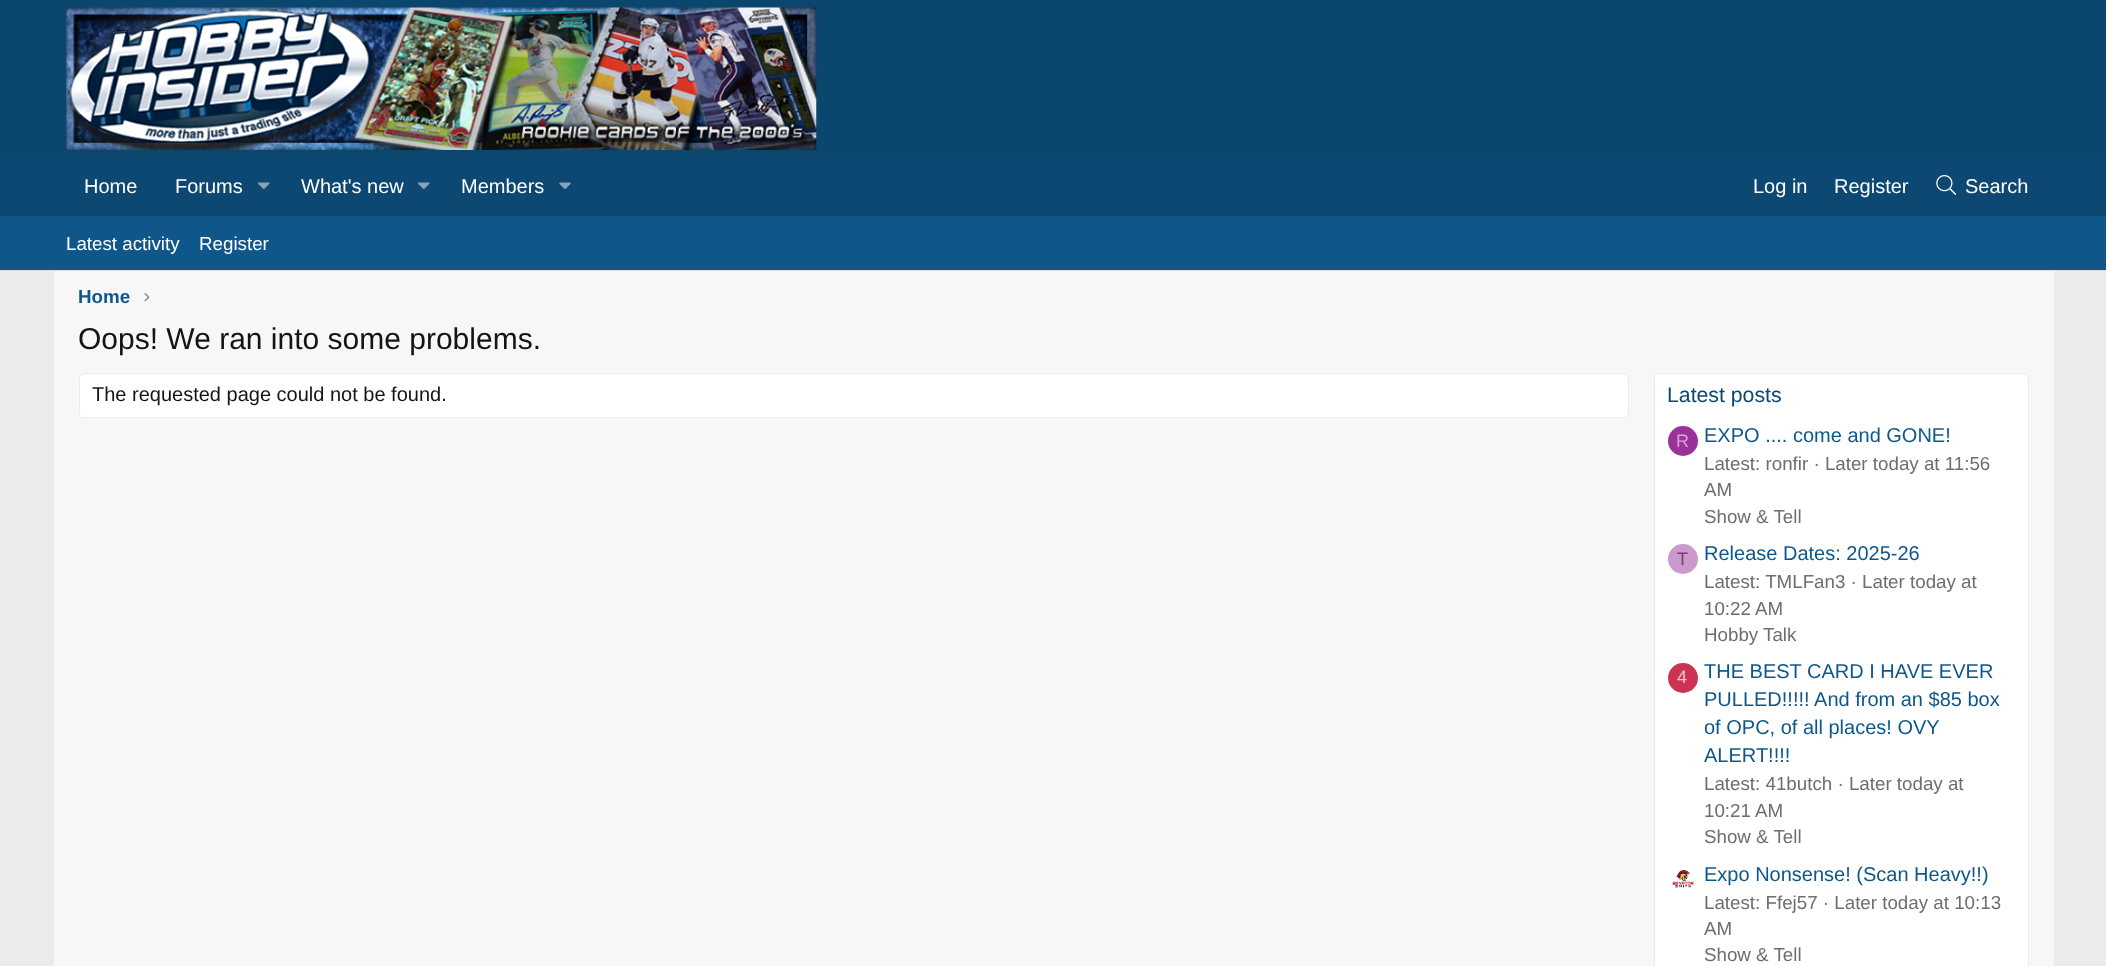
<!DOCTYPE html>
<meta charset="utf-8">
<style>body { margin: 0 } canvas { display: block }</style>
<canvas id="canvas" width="2106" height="966"></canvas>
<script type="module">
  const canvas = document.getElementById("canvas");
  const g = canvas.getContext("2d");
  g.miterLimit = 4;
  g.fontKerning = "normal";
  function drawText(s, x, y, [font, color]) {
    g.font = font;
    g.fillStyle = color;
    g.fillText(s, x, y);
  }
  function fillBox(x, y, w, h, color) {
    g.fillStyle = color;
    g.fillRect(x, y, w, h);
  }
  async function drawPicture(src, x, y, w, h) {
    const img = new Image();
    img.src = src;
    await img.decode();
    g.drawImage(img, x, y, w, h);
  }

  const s1 = ["20px Liberation Sans", "#FFFFFF"];
  const s2 = ["18.75px Liberation Sans", "#FFFFFF"];
  const s3 = ["bold 18.75px Liberation Sans", "#0F578A"];
  const s4 = ["30px Liberation Sans", "#141414"];
  const s5 = ["20px Liberation Sans", "#141414"];
  const s6 = ["21.25px Liberation Sans", "#0D4872"];
  const s7 = ["18px Liberation Sans", "#DF9FDF"];
  const s8 = ["20px Liberation Sans", "#0F578A"];
  const s9 = ["18.75px Liberation Sans", "#6E6E6E"];
  const s10 = ["18px Liberation Sans", "#773C77"];
  const s11 = ["18px Liberation Sans", "#F0C2CB"];

  fillBox(0, 0, 2106, 966, "#EBEBEB");
  fillBox(0, 0, 2106, 158, "#0B466F");
  await drawPicture("pic1.png", 66, 7, 751, 143);
  fillBox(0, 158, 2106, 58, "#0D4872");
  drawText("Home", 84, 193, s1);
  drawText("Forums", 175, 193, s1);
  await drawPicture("pic2.png", 258, 182, 12, 7);
  drawText("What's new", 301, 193, s1);
  await drawPicture("pic2.png", 418, 182, 12, 7);
  drawText("Members", 461, 193, s1);
  await drawPicture("pic3.png", 559, 182, 12, 7);
  drawText("Log in", 1753, 193, s1);
  drawText("Register", 1834, 193, s1);
  await drawPicture("pic4.png", 1936, 175, 20, 20);
  drawText("Search", 1965, 193, s1);
  fillBox(0, 216, 2106, 54, "#0F578A");
  fillBox(0, 270, 2106, 1, "#E0E0E0");
  drawText("Latest activity", 66, 250, s2);
  drawText("Register", 199, 250, s2);
  fillBox(54, 271, 2000, 695, "#F7F7F7");
  drawText("Home", 78, 303, s3);
  await drawPicture("pic5.png", 144, 293, 6, 9);
  drawText("Oops! We ran into some problems.", 78, 349, s4);
  g.fillStyle = "#FFFFFF";
  g.beginPath();
  g.roundRect(79.5, 373.5, 1549, 44, 4.5);
  g.fill();
  g.strokeStyle = "#EBEBEB";
  g.stroke();
  drawText("The requested page could not be found.", 92, 401, s5);
  g.fillStyle = "#FFFFFF";
  g.beginPath();
  g.roundRect(1654.5, 373.5, 374, 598, 4.5);
  g.fill();
  g.stroke();
  drawText("Latest posts", 1667, 402, s6);
  g.fillStyle = "#993399";
  g.beginPath();
  g.arc(1683, 441, 15, 0, Math.PI * 2);
  g.fill();
  drawText("R", 1676, 447, s7);
  drawText("EXPO .... come and GONE!", 1704, 442, s8);
  drawText("Latest: ronfir · Later today at 11:56", 1704, 470, s9);
  drawText("AM", 1704, 496, s9);
  drawText("Show & Tell", 1704, 523, s9);
  g.fillStyle = "#CC99CC";
  g.beginPath();
  g.arc(1683, 559, 15, 0, Math.PI * 2);
  g.fill();
  drawText("T", 1677, 565, s10);
  drawText("Release Dates: 2025-26", 1704, 560, s8);
  drawText("Latest: TMLFan3 · Later today at", 1704, 588, s9);
  drawText("10:22 AM", 1704, 615, s9);
  drawText("Hobby Talk", 1704, 641, s9);
  g.fillStyle = "#CC3352";
  g.beginPath();
  g.arc(1683, 678, 15, 0, Math.PI * 2);
  g.fill();
  drawText("4", 1677, 683, s11);
  drawText("THE BEST CARD I HAVE EVER", 1704, 678, s8);
  drawText("PULLED!!!!! And from an $85 box", 1704, 706, s8);
  drawText("of OPC, of all places! OVY", 1704, 734, s8);
  drawText("ALERT!!!!", 1704, 762, s8);
  drawText("Latest: 41butch · Later today at", 1704, 790, s9);
  drawText("10:21 AM", 1704, 817, s9);
  drawText("Show & Tell", 1704, 843, s9);
  await drawPicture("pic6.png", 1672, 870, 22, 18);
  drawText("Expo Nonsense! (Scan Heavy!!)", 1704, 881, s8);
  drawText("Latest: Ffej57 · Later today at 10:13", 1704, 909, s9);
  drawText("AM", 1704, 935, s9);
  drawText("Show & Tell", 1704, 961, s9);
</script>
